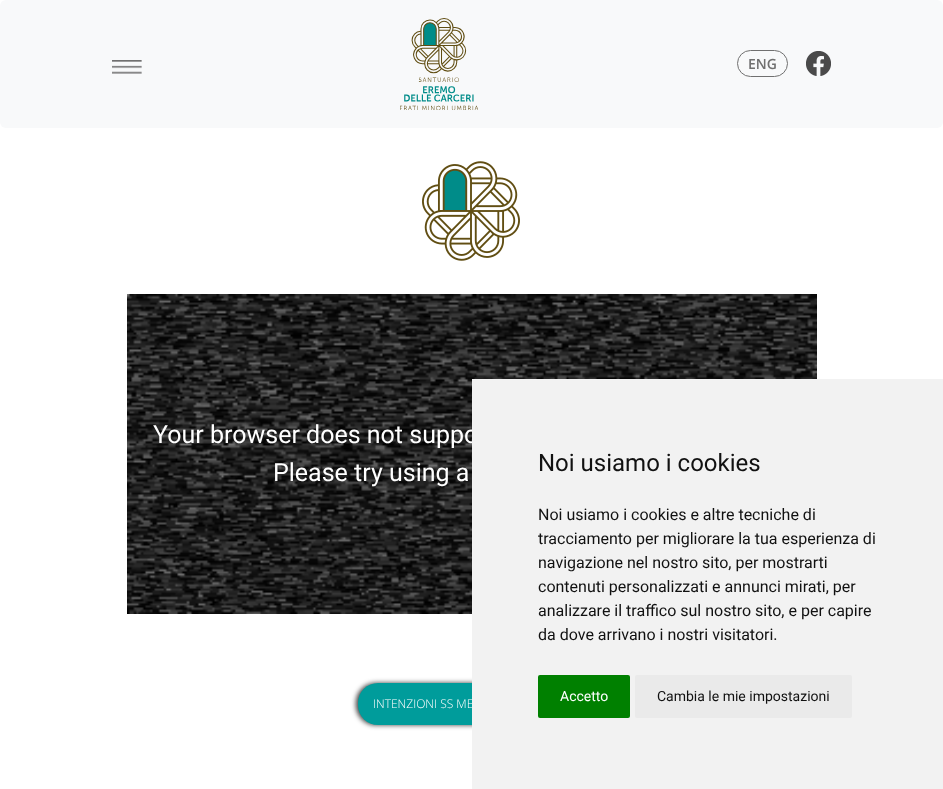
<!DOCTYPE html>
<meta charset="utf-8">
<style>body { margin: 0 } canvas { display: block }</style>
<canvas id="canvas" width="943" height="789"></canvas>
<script type="module">
  const canvas = document.getElementById("canvas");
  const g = canvas.getContext("2d");
  g.miterLimit = 4;
  g.fontKerning = "normal";
  function drawText(s, x, y, [font, color]) {
    g.font = font;
    g.fillStyle = color;
    g.fillText(s, x, y);
  }
  function fillBox(x, y, w, h, color) {
    g.fillStyle = color;
    g.fillRect(x, y, w, h);
  }
  function fillRounded(x, y, w, h, r, color) {
    g.fillStyle = color;
    g.beginPath();
    g.roundRect(x, y, w, h, r);
    g.fill();
  }
  async function drawPicture(src, x, y, w, h) {
    const img = new Image();
    img.src = src;
    await img.decode();
    g.drawImage(img, x, y, w, h);
  }

  const s1 = ["600 14px Open Sans", "#707070"];
  const s2 = ["25px Roboto", "#FFFFFF"];
  const s3 = ["300 12px Open Sans", "#FFFFFF"];
  const s4 = ["24px Roboto", "#111111"];
  const s5 = ["16px Roboto", "#111111"];
  const s6 = ["14px Roboto", "#FFFFFF"];
  const s7 = ["14px Roboto", "#111111"];

  fillBox(0, 0, 943, 789, "#FFFFFF");
  fillRounded(0, 0, 943, 128, 6, "#F8F9FA");
  await drawPicture("pic1.png", 112, 60, 30, 14);
  await drawPicture("pic2.png", 400, 18, 78, 92);
  g.beginPath();
  g.roundRect(737.5, 50.5, 50, 26, 13);
  g.strokeStyle = "#707070";
  g.stroke();
  drawText("ENG", 748, 69, s1);
  await drawPicture("pic3.png", 806, 51, 25, 25);
  await drawPicture("pic4.png", 422, 161, 98, 100);
  fillBox(127, 294, 690, 320, "#777777");
  await drawPicture("pic5.png", 127, 294, 690, 320);
  drawText("Your browser does not suppo", 153, 443, s2);
  drawText("Please try using a", 273, 481, s2);
  g.fillStyle = "#3E3E3E";
  g.filter = "blur(2.5px)";
  g.beginPath();
  g.roundRect(356, 683, 227, 42, 20);
  g.fill();
  g.filter = "none";
  fillRounded(358, 683, 227, 42, 20, "#009C9B");
  drawText("INTENZIONI SS ME", 373, 708, s3);
  fillBox(472, 379, 471, 410, "#F2F2F2");
  drawText("Noi usiamo i cookies", 538, 471, s4);
  drawText("Noi usiamo i cookies e altre tecniche di", 538, 520, s5);
  drawText("tracciamento per migliorare la tua esperienza di", 538, 544, s5);
  drawText("navigazione nel nostro sito, per mostrarti", 538, 568, s5);
  drawText("contenuti personalizzati e annunci mirati, per", 538, 592, s5);
  drawText("analizzare il traffico sul nostro sito, e per capire", 538, 616, s5);
  drawText("da dove arrivano i nostri visitatori.", 538, 640, s5);
  fillRounded(538, 675, 92, 43, 2, "#008000");
  drawText("Accetto", 560, 701, s6);
  fillRounded(635, 675, 217, 43, 2, "#EAEAEA");
  drawText("Cambia le mie impostazioni", 657, 701, s7);
</script>
